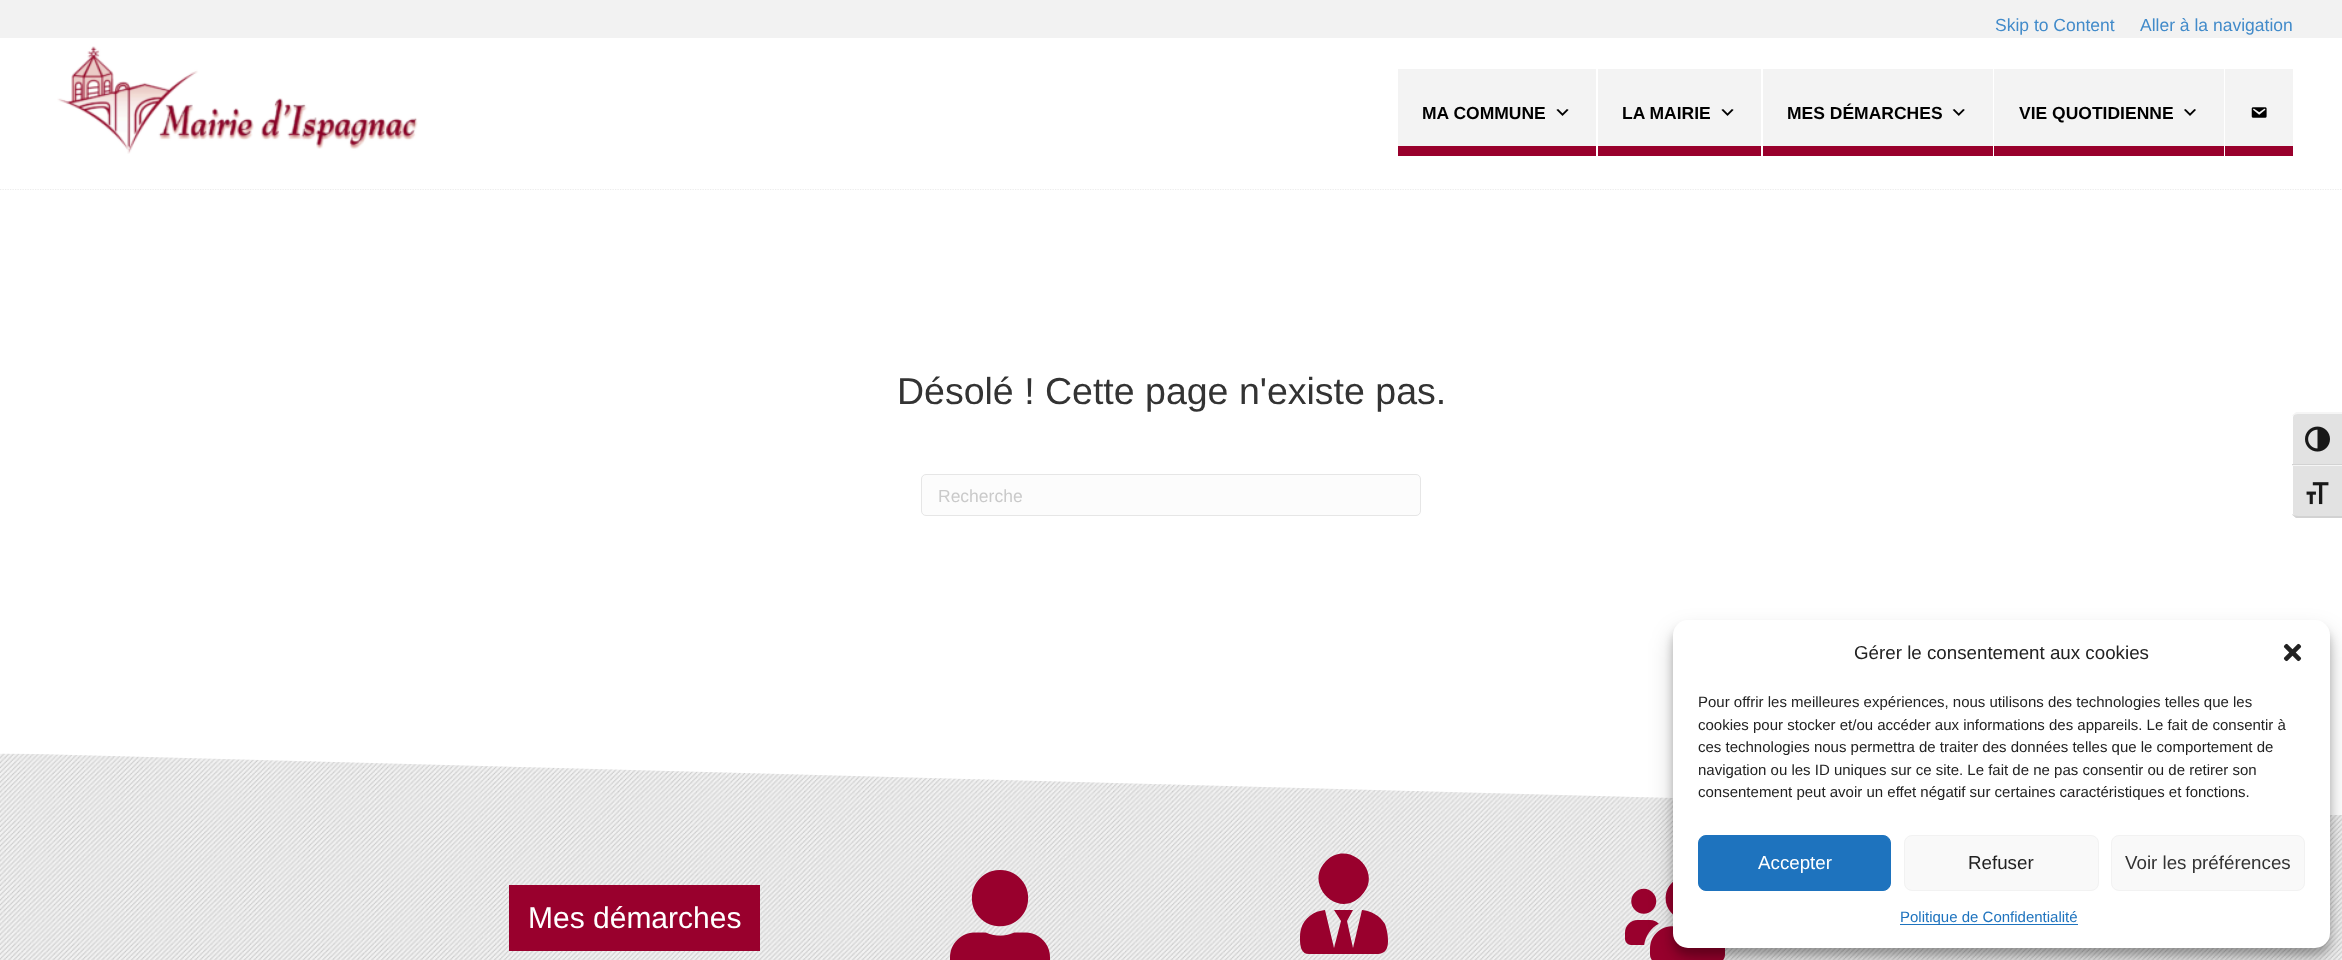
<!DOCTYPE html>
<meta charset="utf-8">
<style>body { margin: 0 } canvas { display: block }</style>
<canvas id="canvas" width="2342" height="960"></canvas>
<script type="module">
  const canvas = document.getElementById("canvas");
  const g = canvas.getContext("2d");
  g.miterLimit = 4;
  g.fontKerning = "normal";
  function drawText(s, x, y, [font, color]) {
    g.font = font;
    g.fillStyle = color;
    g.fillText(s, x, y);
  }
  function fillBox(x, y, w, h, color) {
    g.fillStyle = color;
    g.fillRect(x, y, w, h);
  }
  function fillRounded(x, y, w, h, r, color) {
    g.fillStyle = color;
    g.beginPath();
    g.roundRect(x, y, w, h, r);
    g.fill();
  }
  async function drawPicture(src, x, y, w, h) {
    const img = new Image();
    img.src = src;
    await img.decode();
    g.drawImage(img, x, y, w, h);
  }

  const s1 = ["17.5px Liberation Sans", "#428BCA"];
  const s2 = ["bold 17.5px Liberation Sans", "#000000"];
  const s3 = ["37.5px Liberation Sans", "#333333"];
  const s4 = ["17.5px Liberation Sans", "#CACACA"];
  const s5 = ["30px Liberation Sans", "#FFFFFF"];
  const s6 = ["18.75px Liberation Sans", "#222222"];
  const s7 = ["15px Liberation Sans", "#222222"];
  const s8 = ["18.75px Liberation Sans", "#FFFFFF"];
  const s9 = ["18.75px Liberation Sans", "#333333"];
  const s10 = ["15px Liberation Sans", "#1E73BE"];

  fillBox(0, 0, 2342, 960, "#F2F2F2");
  drawText("Skip to Content", 1995, 31, s1);
  drawText("Aller à la navigation", 2140, 31, s1);
  fillBox(0, 38, 2342, 716, "#FFFFFF");
  g.beginPath();
  g.moveTo(0, 189.5);
  g.lineTo(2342.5, 189.5);
  g.strokeStyle = "#ECECEC";
  g.lineWidth = 1.2;
  g.setLineDash([1.25, 1.25]);
  g.stroke();
  await drawPicture("pic1.png", 57, 46, 361, 108);
  fillBox(1398, 69, 198, 77, "#F3F3F3");
  fillBox(1398, 146, 198, 10, "#99002C");
  drawText("MA COMMUNE", 1422, 119, s2);
  await drawPicture("pic2.png", 1556, 109, 13, 7);
  fillBox(1598, 69, 163, 77, "#F3F3F3");
  fillBox(1598, 146, 163, 10, "#99002C");
  drawText("LA MAIRIE", 1622, 119, s2);
  await drawPicture("pic2.png", 1721, 109, 13, 7);
  fillBox(1763, 69, 230, 77, "#F3F3F3");
  fillBox(1763, 146, 230, 10, "#99002C");
  drawText("MES DÉMARCHES", 1787, 119, s2);
  await drawPicture("pic3.png", 1952, 109, 13, 7);
  fillBox(1994, 69, 230, 77, "#F3F3F3");
  fillBox(1994, 146, 230, 10, "#99002C");
  drawText("VIE QUOTIDIENNE", 2019, 119, s2);
  await drawPicture("pic4.png", 2184, 109, 12, 7);
  fillBox(2225, 69, 68, 77, "#F3F3F3");
  fillBox(2225, 146, 68, 10, "#99002C");
  await drawPicture("pic5.png", 2251, 107, 16, 11);
  drawText("Désolé ! Cette page n'existe pas.", 897, 404, s3);
  g.fillStyle = "#FCFCFC";
  g.beginPath();
  g.roundRect(921.5, 474.5, 499, 41, 4.5);
  g.fill();
  g.strokeStyle = "#E6E6E6";
  g.lineWidth = 1;
  g.setLineDash([]);
  g.stroke();
  drawText("Recherche", 938, 502, s4);
  await drawPicture("pic6.png", 0, 753, 2342, 207);
  g.save();
  g.beginPath();
  g.rect(0, 753, 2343, 62);
  g.clip();
  g.fillStyle = "#FFFFFF";
  g.beginPath();
  g.moveTo(2342, 816);
  g.lineTo(2342, 753);
  g.lineTo(0, 753);
  g.closePath();
  g.fill();
  g.restore();
  fillBox(509, 885, 251, 66, "#99002D");
  drawText("Mes démarches", 528, 928, s5);
  await drawPicture("pic7.png", 950, 870, 100, 90);
  g.fillStyle = "#99002D";
  g.beginPath();
  g.moveTo(1361, 896);
  g.bezierCurveTo(1338, 920, 1303, 884, 1326, 861);
  g.bezierCurveTo(1349, 838, 1385, 873, 1361, 896);
  g.closePath();
  g.moveTo(1362, 910);
  g.bezierCurveTo(1372, 911, 1380, 916, 1385, 924);
  g.bezierCurveTo(1387, 930, 1388, 935, 1388, 941);
  g.bezierCurveTo(1388, 956, 1379, 954, 1367, 954);
  g.lineTo(1309, 954);
  g.bezierCurveTo(1301, 954, 1300, 946, 1300, 939);
  g.bezierCurveTo(1300, 936, 1300, 932, 1301, 929);
  g.bezierCurveTo(1304, 918, 1314, 911, 1325, 910);
  g.lineTo(1334, 948);
  g.lineTo(1341, 921);
  g.lineTo(1334, 910);
  g.lineTo(1353, 910);
  g.lineTo(1347, 921);
  g.lineTo(1353, 948);
  g.closePath();
  g.fill();
  await drawPicture("pic8.png", 1625, 882, 100, 78);
  g.fillStyle = "#E2E2E2";
  g.beginPath();
  g.moveTo(2298, 413);
  g.lineTo(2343, 413);
  g.lineTo(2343, 465);
  g.lineTo(2293, 465);
  g.lineTo(2293, 418);
  g.bezierCurveTo(2293, 415, 2295, 413, 2298, 413);
  g.closePath();
  g.fill();
  g.fillStyle = "#F5F5F5";
  g.beginPath();
  g.moveTo(2298, 414);
  g.bezierCurveTo(2296, 414, 2293, 415, 2292, 416);
  g.bezierCurveTo(2292, 415, 2295, 413, 2296, 412);
  g.lineTo(2342, 412);
  g.lineTo(2342, 414);
  g.closePath();
  g.fill();
  fillBox(2292, 464, 50, 1, "#D2D2D2");
  await drawPicture("pic9.png", 2305, 426, 25, 26);
  g.fillStyle = "#E2E2E2";
  g.beginPath();
  g.moveTo(2293, 465);
  g.lineTo(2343, 465);
  g.lineTo(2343, 518);
  g.lineTo(2298, 518);
  g.bezierCurveTo(2295, 518, 2293, 516, 2293, 513);
  g.closePath();
  g.fill();
  fillBox(2292, 465, 50, 1, "#F5F5F5");
  g.fillStyle = "#D2D2D2";
  g.beginPath();
  g.moveTo(2342, 518);
  g.lineTo(2342, 516);
  g.lineTo(2298, 516);
  g.bezierCurveTo(2296, 516, 2293, 515, 2292, 514);
  g.bezierCurveTo(2292, 515, 2295, 517, 2296, 518);
  g.closePath();
  g.fill();
  await drawPicture("pic10.png", 2306, 482, 23, 23);
  g.fillStyle = "rgba(0, 0, 0, 0.23)";
  g.filter = "blur(4px)";
  g.beginPath();
  g.roundRect(1673, 628, 657, 327, 15);
  g.fill();
  g.filter = "none";
  g.fillStyle = "rgba(0, 0, 0, 0.19)";
  g.filter = "blur(12.5px)";
  g.beginPath();
  g.roundRect(1673, 633, 657, 327, 15);
  g.fill();
  g.filter = "none";
  fillRounded(1673, 620, 657, 328, 15, "#FFFFFF");
  drawText("Gérer le consentement aux cookies", 1854, 659, s6);
  await drawPicture("pic11.png", 2283, 643, 19, 19);
  drawText("Pour offrir les meilleures expériences, nous utilisons des technologies telles que les", 1698, 707, s7);
  drawText("cookies pour stocker et/ou accéder aux informations des appareils. Le fait de consentir à", 1698, 730, s7);
  drawText("ces technologies nous permettra de traiter des données telles que le comportement de", 1698, 752, s7);
  drawText("navigation ou les ID uniques sur ce site. Le fait de ne pas consentir ou de retirer son", 1698, 775, s7);
  drawText("consentement peut avoir un effet négatif sur certaines caractéristiques et fonctions.", 1698, 797, s7);
  g.fillStyle = "#1E73BE";
  g.beginPath();
  g.roundRect(1698.5, 835.5, 192, 55, 7.5);
  g.fill();
  g.strokeStyle = "#1E73BE";
  g.stroke();
  drawText("Accepter", 1758, 869, s8);
  g.fillStyle = "#F9F9F9";
  g.beginPath();
  g.roundRect(1904.5, 835.5, 194, 55, 7.5);
  g.fill();
  g.strokeStyle = "#F2F2F2";
  g.stroke();
  drawText("Refuser", 1968, 869, s6);
  g.fillStyle = "#F9F9F9";
  g.beginPath();
  g.roundRect(2111.5, 835.5, 193, 55, 7.5);
  g.fill();
  g.stroke();
  drawText("Voir les préférences", 2125, 869, s9);
  fillBox(1900, 924, 178, 1, "#1E73BE");
  drawText("Politique de Confidentialité", 1900, 922, s10);
</script>
